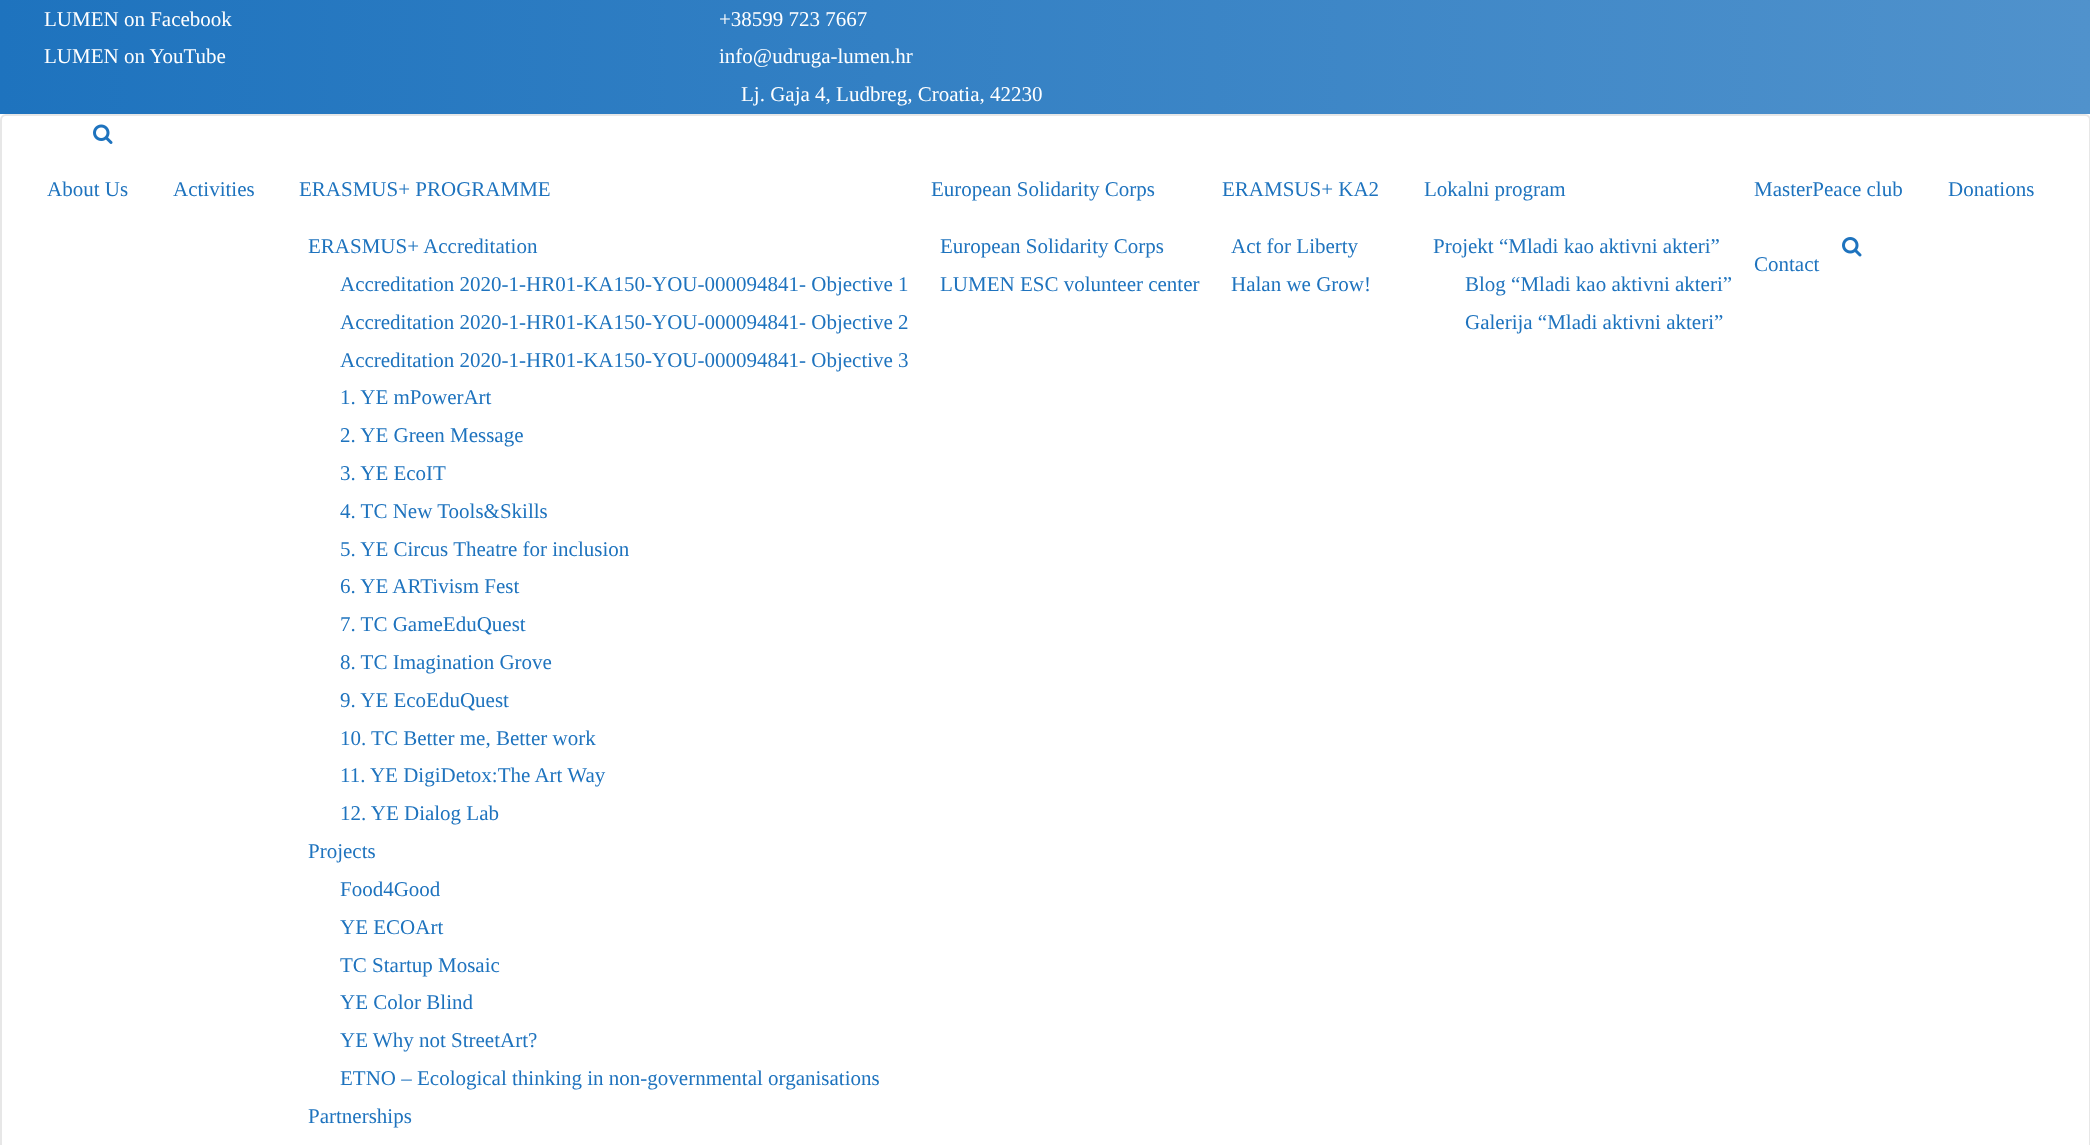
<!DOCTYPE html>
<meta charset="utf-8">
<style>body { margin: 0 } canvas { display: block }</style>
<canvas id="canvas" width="2090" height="1145"></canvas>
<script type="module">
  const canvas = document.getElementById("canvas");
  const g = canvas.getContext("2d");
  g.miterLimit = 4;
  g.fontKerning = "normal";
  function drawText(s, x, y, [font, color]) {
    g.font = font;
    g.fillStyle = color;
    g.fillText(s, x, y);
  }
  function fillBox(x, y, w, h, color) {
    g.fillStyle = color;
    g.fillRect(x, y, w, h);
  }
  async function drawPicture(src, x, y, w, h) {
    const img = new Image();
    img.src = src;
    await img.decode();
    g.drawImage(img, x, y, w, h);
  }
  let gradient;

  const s1 = ["21px Liberation Serif", "#FFFFFF"];
  const s2 = ["21px Liberation Serif", "#1E73BE"];

  fillBox(0, 0, 2090, 1145, "#FFFFFF");
  gradient = g.createLinearGradient(0, 57, 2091, 57);
  gradient.addColorStop(0, "#1E73BE");
  gradient.addColorStop(1, "#5092CC");
  g.fillStyle = gradient;
  g.fillRect(0, 0, 2090, 114);
  drawText("LUMEN on Facebook", 44, 26, s1);
  drawText("LUMEN on YouTube", 44, 63, s1);
  drawText("+38599 723 7667", 719, 26, s1);
  drawText("info@udruga-lumen.hr", 719, 63, s1);
  drawText("Lj. Gaja 4, Ludbreg, Croatia, 42230", 741, 101, s1);
  g.beginPath();
  g.roundRect(1, 115, 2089, 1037, 5);
  g.strokeStyle = "#E7E7E7";
  g.lineWidth = 2;
  g.stroke();
  await drawPicture("pic1.png", 93, 124, 20, 20);
  drawText("About Us", 47, 196, s2);
  drawText("Activities", 173, 196, s2);
  drawText("ERASMUS+ PROGRAMME", 299, 196, s2);
  drawText("ERASMUS+ Accreditation", 308, 253, s2);
  drawText("Accreditation 2020-1-HR01-KA150-YOU-000094841- Objective 1", 340, 291, s2);
  drawText("Accreditation 2020-1-HR01-KA150-YOU-000094841- Objective 2", 340, 329, s2);
  drawText("Accreditation 2020-1-HR01-KA150-YOU-000094841- Objective 3", 340, 367, s2);
  drawText("1. YE mPowerArt", 340, 404, s2);
  drawText("2. YE Green Message", 340, 442, s2);
  drawText("3. YE EcoIT", 340, 480, s2);
  drawText("4. TC New Tools&Skills", 340, 518, s2);
  drawText("5. YE Circus Theatre for inclusion", 340, 556, s2);
  drawText("6. YE ARTivism Fest", 340, 593, s2);
  drawText("7. TC GameEduQuest", 340, 631, s2);
  drawText("8. TC Imagination Grove", 340, 669, s2);
  drawText("9. YE EcoEduQuest", 340, 707, s2);
  drawText("10. TC Better me, Better work", 340, 745, s2);
  drawText("11. YE DigiDetox:The Art Way", 340, 782, s2);
  drawText("12. YE Dialog Lab", 340, 820, s2);
  drawText("Projects", 308, 858, s2);
  drawText("Food4Good", 340, 896, s2);
  drawText("YE ECOArt", 340, 934, s2);
  drawText("TC Startup Mosaic", 340, 972, s2);
  drawText("YE Color Blind", 340, 1009, s2);
  drawText("YE Why not StreetArt?", 340, 1047, s2);
  drawText("ETNO – Ecological thinking in non-governmental organisations", 340, 1085, s2);
  drawText("Partnerships", 308, 1123, s2);
  drawText("European Solidarity Corps", 931, 196, s2);
  drawText("European Solidarity Corps", 940, 253, s2);
  drawText("LUMEN ESC volunteer center", 940, 291, s2);
  drawText("ERAMSUS+ KA2", 1222, 196, s2);
  drawText("Act for Liberty", 1231, 253, s2);
  drawText("Halan we Grow!", 1231, 291, s2);
  drawText("Lokalni program", 1424, 196, s2);
  drawText("Projekt “Mladi kao aktivni akteri”", 1433, 253, s2);
  drawText("Blog “Mladi kao aktivni akteri”", 1465, 291, s2);
  drawText("Galerija “Mladi aktivni akteri”", 1465, 329, s2);
  drawText("MasterPeace club", 1754, 196, s2);
  drawText("Donations", 1948, 196, s2);
  await drawPicture("pic2.png", 1842, 237, 20, 20);
  drawText("Contact", 1754, 271, s2);
</script>
